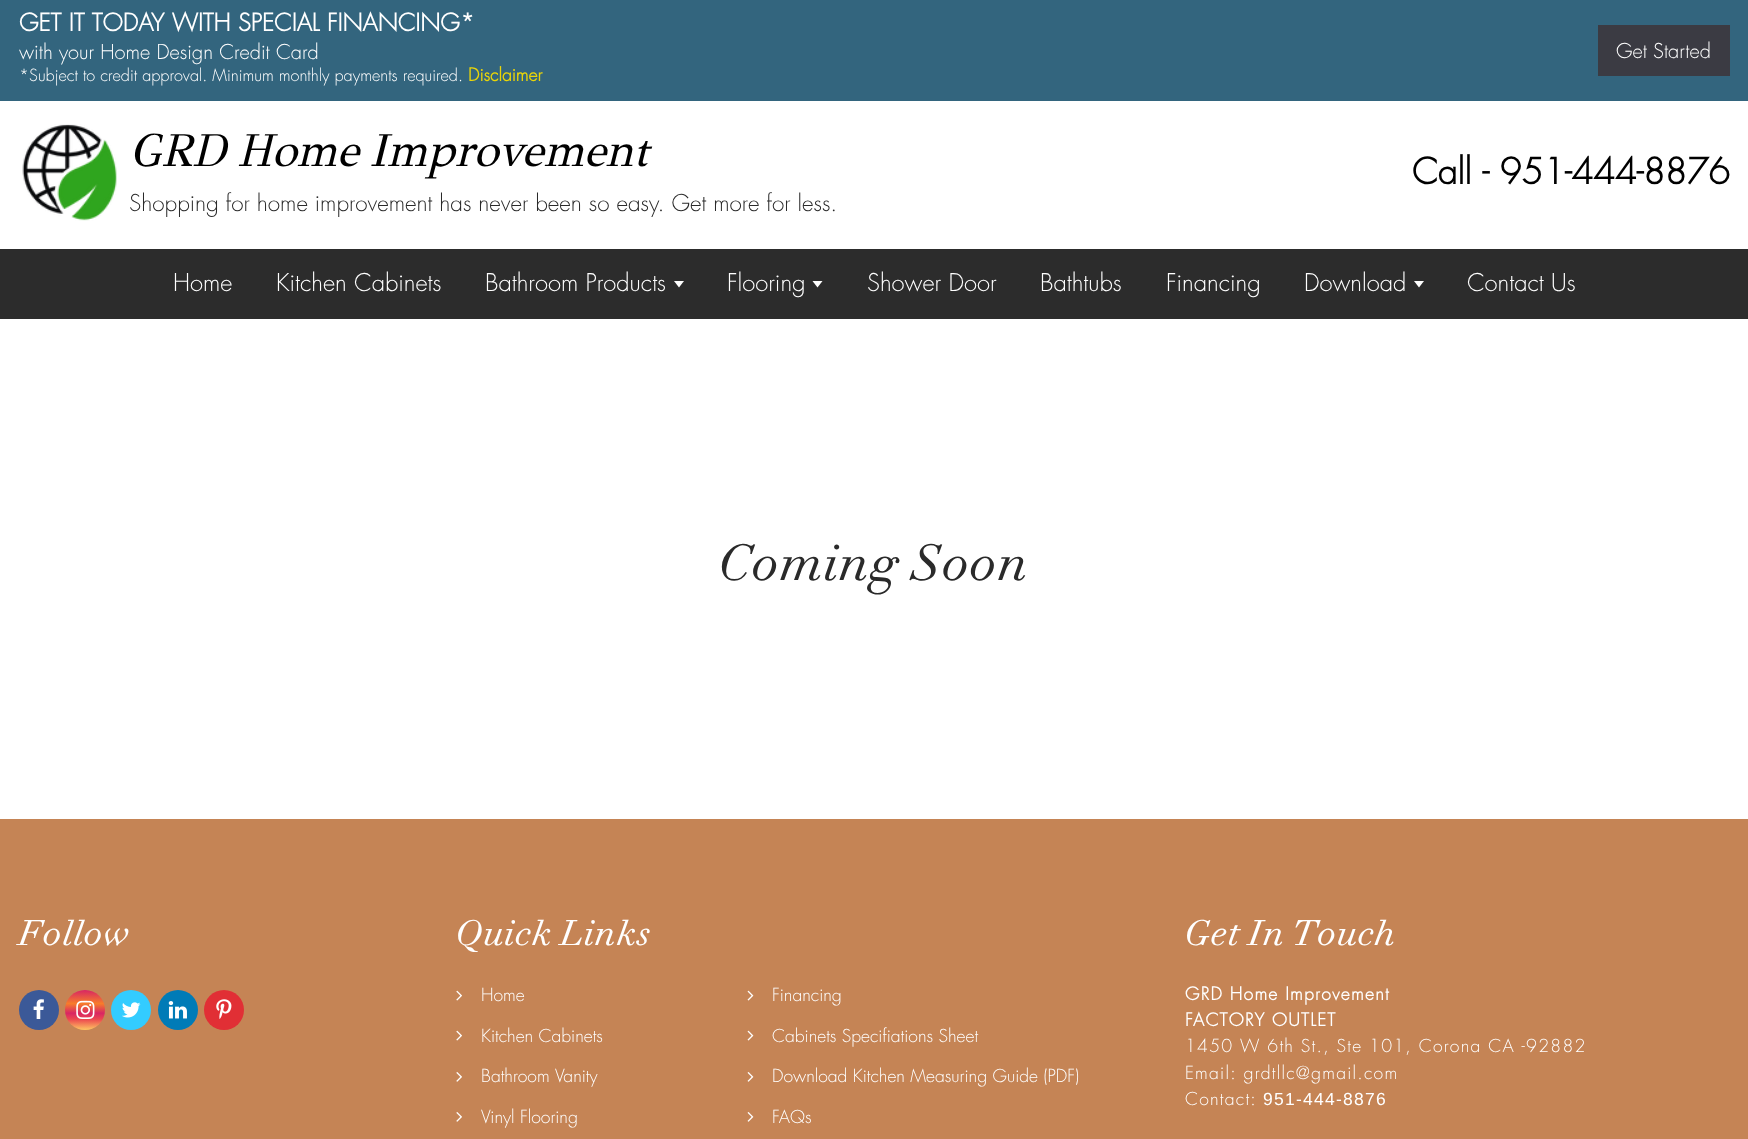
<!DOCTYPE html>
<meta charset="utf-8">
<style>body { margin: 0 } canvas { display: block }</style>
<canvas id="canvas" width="1748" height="1139"></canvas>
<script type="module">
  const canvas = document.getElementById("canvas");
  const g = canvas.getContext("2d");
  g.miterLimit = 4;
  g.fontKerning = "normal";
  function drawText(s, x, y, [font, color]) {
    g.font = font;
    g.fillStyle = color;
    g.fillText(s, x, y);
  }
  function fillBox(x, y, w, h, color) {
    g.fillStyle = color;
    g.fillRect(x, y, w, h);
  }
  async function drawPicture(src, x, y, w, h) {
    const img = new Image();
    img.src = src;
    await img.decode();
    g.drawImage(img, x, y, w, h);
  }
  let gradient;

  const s1 = ["bold 23.75px Futura", "#FFFFFF"];
  const s2 = ["300 20px Futura", "#FFFFFF"];
  const s3 = ["300 16.25px Futura", "#FFFFFF"];
  const s4 = ["bold 17.5px Futura", "#EAD508"];
  const s5 = ["italic 46.25px GFS Didot", "#000000"];
  const s6 = ["300 22.5px Futura", "#2A2A2A"];
  const s7 = ["bold 35px Futura", "#000000"];
  const s8 = ["300 23.75px Futura", "#FFFFFF"];
  const s9 = ["50px 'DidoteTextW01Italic'", "#2A2A2A"];
  const s10 = ["35px 'DidoteTextW01Italic'", "#FFFFFF"];
  const s11 = ["300 17.5px Futura", "#FFFFFF"];
  const s12 = ["bold 17.5px Futura", "#FFFFFF"];
  const s13 = ["17.5px Liberation Sans", "#FFFFFF"];

  fillBox(0, 0, 1748, 1139, "#FFFFFF");
  fillBox(0, 0, 1748, 101, "#33657E");
  drawText("GET IT TODAY WITH SPECIAL FINANCING*", 19, 31, s1);
  drawText("with your Home Design Credit Card", 19, 59, s2);
  drawText("*Subject to credit approval. Minimum monthly payments required.", 19, 81, s3);
  drawText("Disclaimer", 468, 81, s4);
  fillBox(1598, 25, 132, 51, "#3B3B43");
  drawText("Get Started", 1616, 58, s2);
  await drawPicture("pic1.png", 22, 124, 95, 97);
  g.wordSpacing = "-6px";
  drawText("GRD Home Improvement", 129, 166, s5);
  g.wordSpacing = "0px";
  drawText("Shopping for home improvement has never been so easy. Get more for less.", 129, 211, s6);
  drawText("Call - 951-444-8876", 1412, 184, s7);
  fillBox(0, 249, 1748, 70, "#2C2C2C");
  drawText("Home", 173, 291, s8);
  drawText("Kitchen Cabinets", 276, 291, s8);
  drawText("Bathroom Products", 485, 291, s8);
  g.beginPath();
  g.moveTo(674, 281);
  g.lineTo(684, 281);
  g.lineTo(679, 287.5);
  g.closePath();
  g.fill();
  drawText("Flooring", 727, 291, s8);
  g.beginPath();
  g.moveTo(812.5, 281);
  g.lineTo(822.5, 281);
  g.lineTo(817.5, 287.5);
  g.closePath();
  g.fill();
  drawText("Shower Door", 867, 291, s8);
  drawText("Bathtubs", 1040, 291, s8);
  drawText("Financing", 1166, 291, s8);
  drawText("Download", 1304, 291, s8);
  g.beginPath();
  g.moveTo(1414, 281);
  g.lineTo(1424, 281);
  g.lineTo(1419, 287.5);
  g.closePath();
  g.fill();
  drawText("Contact Us", 1467, 291, s8);
  drawText("Coming Soon", 719, 580, s9);
  fillBox(0, 819, 1748, 320, "#C58455");
  drawText("Follow", 19, 945, s10);
  g.fillStyle = "#3B5998";
  g.beginPath();
  g.arc(39, 1010, 20, 0, Math.PI * 2);
  g.fill();
  await drawPicture("pic2.png", 33, 999, 11, 20);
  gradient = g.createLinearGradient(85, 990, 85, 1030);
  gradient.addColorStop(0, "#D82564");
  gradient.addColorStop(0.34, "#F77D2A");
  gradient.addColorStop(0.58, "#D82564");
  gradient.addColorStop(0.73, "#EC474F");
  gradient.addColorStop(1, "#FEC662");
  g.fillStyle = gradient;
  g.beginPath();
  g.arc(85, 1010, 20, 0, Math.PI * 2);
  g.fill();
  await drawPicture("pic3.png", 76, 1000, 19, 19);
  g.fillStyle = "#33CCFF";
  g.beginPath();
  g.arc(131, 1010, 20, 0, Math.PI * 2);
  g.fill();
  await drawPicture("pic4.png", 122, 1002, 19, 16);
  g.fillStyle = "#007BB7";
  g.beginPath();
  g.arc(178, 1010, 20, 0, Math.PI * 2);
  g.fill();
  await drawPicture("pic5.png", 168, 1001, 19, 18);
  g.fillStyle = "#E12F35";
  g.beginPath();
  g.arc(224, 1010, 20, 0, Math.PI * 2);
  g.fill();
  await drawPicture("pic6.png", 216, 999, 16, 20);
  drawText("Quick Links", 456, 945, s10);
  await drawPicture("pic7.png", 456, 990, 6, 11);
  drawText("Home", 481, 1001, s11);
  await drawPicture("pic7.png", 456, 1030, 6, 11);
  drawText("Kitchen Cabinets", 481, 1042, s11);
  await drawPicture("pic8.png", 456, 1072, 6, 10);
  drawText("Bathroom Vanity", 481, 1082, s11);
  await drawPicture("pic8.png", 456, 1112, 6, 10);
  drawText("Vinyl Flooring", 481, 1123, s11);
  await drawPicture("pic9.png", 747, 990, 7, 11);
  drawText("Financing", 772, 1001, s11);
  await drawPicture("pic9.png", 747, 1030, 7, 11);
  drawText("Cabinets Specifiations Sheet", 772, 1042, s11);
  await drawPicture("pic10.png", 747, 1072, 7, 10);
  drawText("Download Kitchen Measuring Guide (PDF)", 772, 1082, s11);
  await drawPicture("pic10.png", 747, 1112, 7, 10);
  drawText("FAQs", 772, 1123, s11);
  drawText("Get In Touch", 1185, 945, s10);
  g.letterSpacing = "1.25px";
  drawText("GRD Home Improvement", 1185, 1000, s12);
  drawText("FACTORY OUTLET", 1185, 1026, s12);
  drawText("1450 W 6th St., Ste 101, Corona CA -92882", 1185, 1052, s11);
  drawText("Email: grdtllc@gmail.com", 1185, 1079, s11);
  drawText("Contact:", 1185, 1105, s11);
  drawText("951-444-8876", 1263, 1105, s13);
</script>
